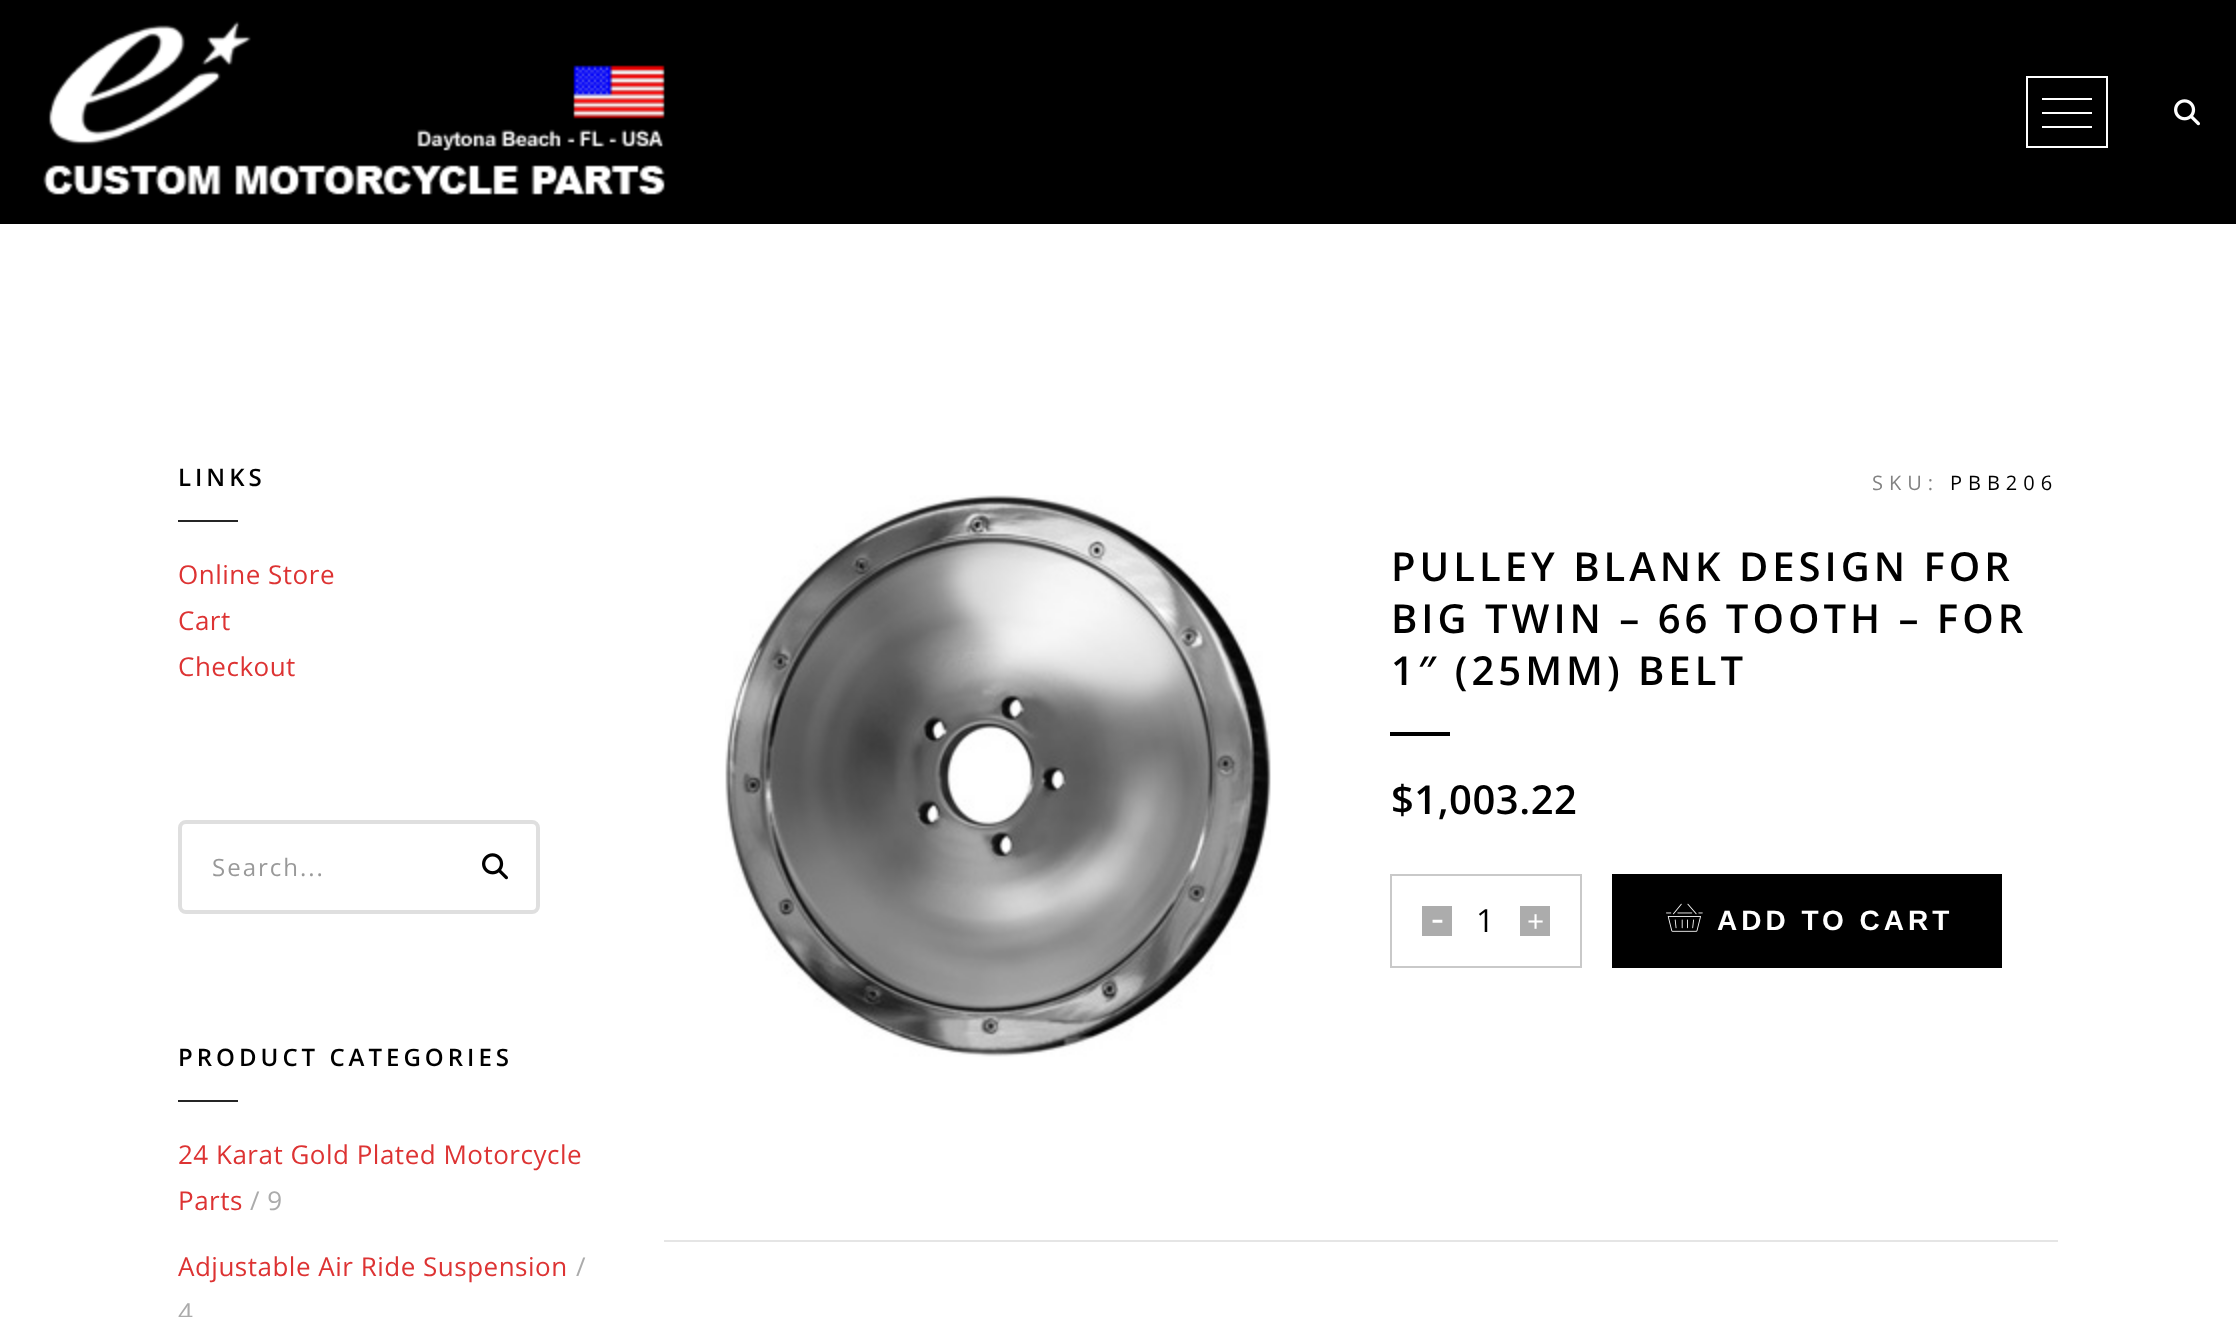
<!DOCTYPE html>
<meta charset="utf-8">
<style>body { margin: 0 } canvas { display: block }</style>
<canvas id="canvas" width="2236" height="1317"></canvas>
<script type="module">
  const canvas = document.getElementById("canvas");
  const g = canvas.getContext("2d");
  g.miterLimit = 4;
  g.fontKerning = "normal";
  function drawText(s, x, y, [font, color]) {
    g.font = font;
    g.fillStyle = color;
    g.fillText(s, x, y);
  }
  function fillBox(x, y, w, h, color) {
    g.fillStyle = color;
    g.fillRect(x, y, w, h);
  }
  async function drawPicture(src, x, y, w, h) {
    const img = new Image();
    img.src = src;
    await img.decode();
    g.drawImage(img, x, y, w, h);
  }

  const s1 = ["600 24px Open Sans", "#000000"];
  const s2 = ["26px Open Sans", "#DD3333"];
  const s3 = ["24px Open Sans", "#999999"];
  const s4 = ["26px Open Sans", "#ABABAB"];
  const s5 = ["20px Open Sans", "#828282"];
  const s6 = ["20px Open Sans", "#000000"];
  const s7 = ["600 40px Open Sans", "#000000"];
  const s8 = ["40px Open Sans", "#FFFFFF"];
  const s9 = ["32px Open Sans", "#000000"];
  const s10 = ["30px Open Sans", "#FFFFFF"];
  const s11 = ["bold 28px Liberation Sans", "#FFFFFF"];

  fillBox(0, 0, 2236, 1317, "#FFFFFF");
  fillBox(0, 0, 2236, 224, "#000000");
  await drawPicture("pic1.png", 43, 21, 622, 174);
  g.strokeStyle = "#FFFFFF";
  g.lineWidth = 2;
  g.strokeRect(2027, 77, 80, 70);
  fillBox(2042, 98, 50, 2, "#FFFFFF");
  fillBox(2042, 112, 50, 2, "#FFFFFF");
  fillBox(2042, 126, 50, 2, "#FFFFFF");
  await drawPicture("pic2.png", 2174, 99, 26, 27);
  g.letterSpacing = "4px";
  drawText("LINKS", 178, 486, s1);
  fillBox(178, 520, 60, 2, "#252525");
  g.letterSpacing = "0.5px";
  drawText("Online Store", 178, 584, s2);
  drawText("Cart", 178, 630, s2);
  drawText("Checkout", 178, 676, s2);
  g.beginPath();
  g.roundRect(180, 822, 358, 90, 6);
  g.strokeStyle = "#DFDFDF";
  g.lineWidth = 4;
  g.stroke();
  g.letterSpacing = "2px";
  drawText("Search...", 212, 876, s3);
  await drawPicture("pic3.png", 482, 853, 26, 27);
  g.letterSpacing = "4px";
  drawText("PRODUCT CATEGORIES", 178, 1066, s1);
  fillBox(178, 1100, 60, 2, "#252525");
  g.letterSpacing = "0.5px";
  drawText("24 Karat Gold Plated Motorcycle", 178, 1164, s2);
  drawText("Parts", 178, 1210, s2);
  drawText("/ 9", 250, 1210, s4);
  drawText("Adjustable Air Ride Suspension", 178, 1276, s2);
  drawText("/", 576, 1276, s4);
  drawText("4", 178, 1322, s4);
  await drawPicture("pic4.png", 725, 495, 546, 562);
  g.letterSpacing = "6px";
  drawText("SKU:", 1872, 490, s5);
  drawText("PBB206", 1950, 490, s6);
  g.letterSpacing = "4px";
  drawText("PULLEY BLANK DESIGN FOR", 1391, 581, s7);
  drawText("BIG TWIN – 66 TOOTH – FOR", 1391, 633, s7);
  drawText("1″ (25MM) BELT", 1391, 685, s7);
  fillBox(1390, 732, 60, 4, "#000000");
  g.letterSpacing = "0.5px";
  drawText("$1,003.22", 1391, 814, s7);
  g.strokeStyle = "#C9C9C9";
  g.lineWidth = 2;
  g.strokeRect(1391, 875, 190, 92);
  fillBox(1422, 906, 30, 30, "#ACACAC");
  g.letterSpacing = "2px";
  drawText("-", 1431, 932, s8);
  drawText("1", 1476, 932, s9);
  fillBox(1520, 906, 30, 30, "#ACACAC");
  drawText("+", 1527, 932, s10);
  fillBox(1612, 874, 390, 94, "#000000");
  await drawPicture("pic5.png", 1666, 903, 37, 29);
  g.letterSpacing = "4px";
  drawText("ADD TO CART", 1717, 930, s11);
  fillBox(664, 1240, 1394, 2, "#E5E5E5");
</script>
